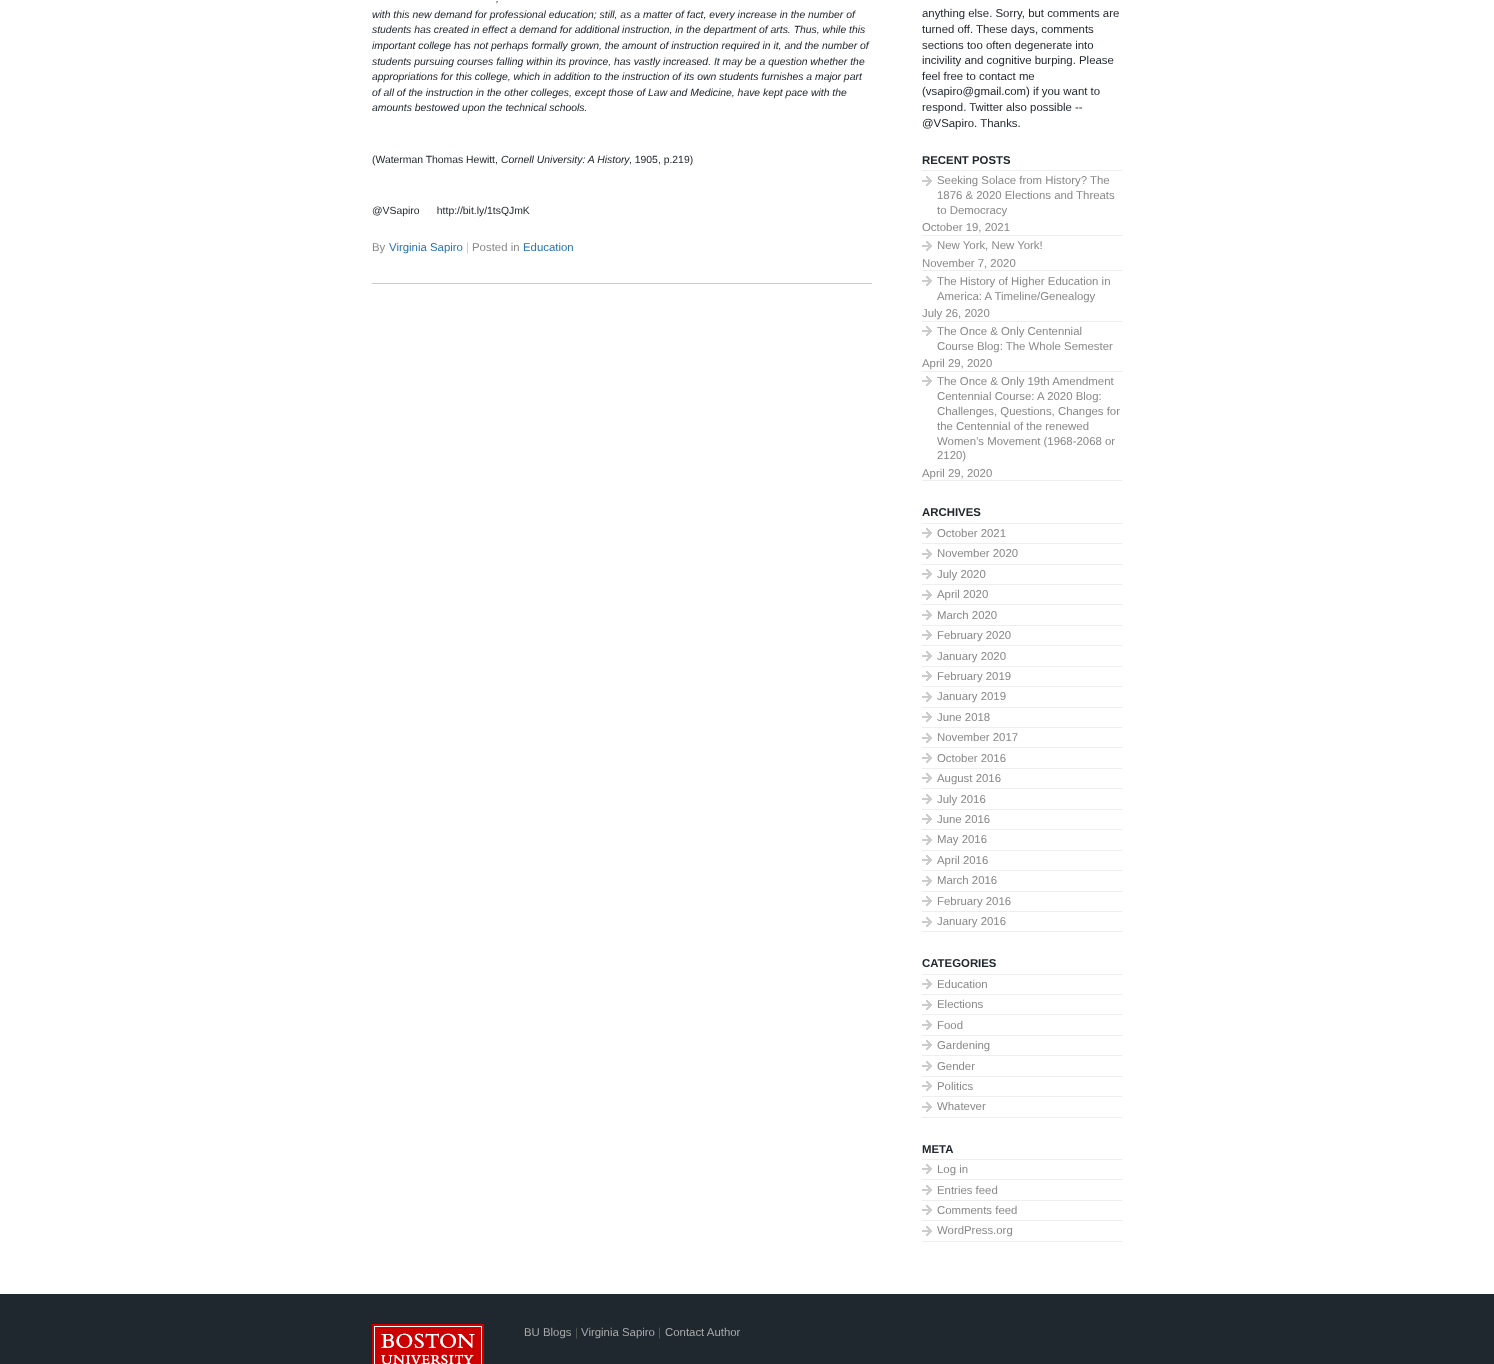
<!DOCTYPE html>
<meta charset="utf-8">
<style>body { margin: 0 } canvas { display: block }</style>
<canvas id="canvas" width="1494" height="1364"></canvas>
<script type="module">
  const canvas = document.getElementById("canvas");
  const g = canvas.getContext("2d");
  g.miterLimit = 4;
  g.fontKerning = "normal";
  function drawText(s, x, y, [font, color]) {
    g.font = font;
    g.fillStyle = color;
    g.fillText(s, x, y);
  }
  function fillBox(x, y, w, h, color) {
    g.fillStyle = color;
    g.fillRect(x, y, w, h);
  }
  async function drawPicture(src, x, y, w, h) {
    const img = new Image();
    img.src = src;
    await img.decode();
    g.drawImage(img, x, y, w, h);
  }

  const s1 = ["italic 10.4px Liberation Sans", "#20282F"];
  const s2 = ["10.4px Liberation Sans", "#20282F"];
  const s3 = ["11.4px Liberation Sans", "#888888"];
  const s4 = ["11.4px Liberation Sans", "#2772B3"];
  const s5 = ["11.4px Liberation Sans", "#CCCCCC"];
  const s6 = ["11.4px Liberation Sans", "#20282F"];
  const s7 = ["bold 11.4px Liberation Sans", "#20282F"];
  const s8 = ["11.4px Liberation Sans", "#AAAAAA"];
  const s9 = ["11.4px Liberation Sans", "#555555"];

  fillBox(0, 0, 1494, 1364, "#20282F");
  fillBox(0, 0, 1494, 1294, "#FFFFFF");
  fillBox(372, 283, 500, 1, "#CCCCCC");
  drawText(",", 496, 2, s1);
  drawText("with this new demand for professional education; still, as a matter of fact, every increase in the number of", 372, 18, s1);
  drawText("students has created in effect a demand for additional instruction, in the department of arts. Thus, while this", 372, 33, s1);
  drawText("important college has not perhaps formally grown, the amount of instruction required in it, and the number of", 372, 49, s1);
  drawText("students pursuing courses falling within its province, has vastly increased. It may be a question whether the", 372, 65, s1);
  drawText("appropriations for this college, which in addition to the instruction of its own students furnishes a major part", 372, 80, s1);
  drawText("of all of the instruction in the other colleges, except those of Law and Medicine, have kept pace with the", 372, 96, s1);
  drawText("amounts bestowed upon the technical schools.", 372, 111, s1);
  drawText("(Waterman Thomas Hewitt,", 372, 163, s2);
  drawText("Cornell University: A History", 501, 163, s1);
  drawText(", 1905, p.219)", 629, 163, s2);
  drawText("@VSapiro      http://bit.ly/1tsQJmK", 372, 214, s2);
  drawText("By", 372, 251, s3);
  drawText("Virginia Sapiro", 389, 251, s4);
  drawText("|", 466, 251, s5);
  drawText("Posted in", 472, 251, s3);
  drawText("Education", 523, 251, s4);
  drawText("anything else. Sorry, but comments are", 922, 17, s6);
  drawText("turned off. These days, comments", 922, 33, s6);
  drawText("sections too often degenerate into", 922, 49, s6);
  drawText("incivility and cognitive burping. Please", 922, 64, s6);
  drawText("feel free to contact me", 922, 80, s6);
  drawText("(vsapiro@gmail.com) if you want to", 922, 95, s6);
  drawText("respond. Twitter also possible --", 922, 111, s6);
  drawText("@VSapiro. Thanks.", 922, 127, s6);
  drawText("RECENT POSTS", 922, 164, s7);
  fillBox(922, 480, 200, 1, "#EEEEEE");
  await drawPicture("pic1.png", 922, 176, 10, 10);
  fillBox(922, 170, 200, 1, "#EEEEEE");
  drawText("Seeking Solace from History? The", 937, 184, s3);
  drawText("1876 & 2020 Elections and Threats", 937, 199, s3);
  drawText("to Democracy", 937, 214, s3);
  drawText("October 19, 2021", 922, 231, s3);
  await drawPicture("pic1.png", 922, 241, 10, 10);
  fillBox(922, 235, 200, 1, "#EEEEEE");
  drawText("New York, New York!", 937, 249, s3);
  drawText("November 7, 2020", 922, 267, s3);
  await drawPicture("pic1.png", 922, 276, 10, 10);
  fillBox(922, 270, 200, 1, "#EEEEEE");
  drawText("The History of Higher Education in", 937, 285, s3);
  drawText("America: A Timeline/Genealogy", 937, 300, s3);
  drawText("July 26, 2020", 922, 317, s3);
  await drawPicture("pic1.png", 922, 326, 10, 10);
  fillBox(922, 321, 200, 1, "#EEEEEE");
  drawText("The Once & Only Centennial", 937, 335, s3);
  drawText("Course Blog: The Whole Semester", 937, 350, s3);
  drawText("April 29, 2020", 922, 367, s3);
  await drawPicture("pic1.png", 922, 376, 10, 10);
  fillBox(922, 371, 200, 1, "#EEEEEE");
  drawText("The Once & Only 19th Amendment", 937, 385, s3);
  drawText("Centennial Course: A 2020 Blog:", 937, 400, s3);
  drawText("Challenges, Questions, Changes for", 937, 415, s3);
  drawText("the Centennial of the renewed", 937, 430, s3);
  drawText("Women’s Movement (1968-2068 or", 937, 445, s3);
  drawText("2120)", 937, 459, s3);
  drawText("April 29, 2020", 922, 477, s3);
  drawText("ARCHIVES", 922, 516, s7);
  fillBox(922, 931, 200, 1, "#EEEEEE");
  await drawPicture("pic1.png", 922, 528, 10, 10);
  fillBox(922, 523, 200, 1, "#EEEEEE");
  drawText("October 2021", 937, 537, s3);
  await drawPicture("pic1.png", 922, 549, 10, 10);
  fillBox(922, 543, 200, 1, "#EEEEEE");
  drawText("November 2020", 937, 557, s3);
  await drawPicture("pic1.png", 922, 569, 10, 10);
  fillBox(922, 564, 200, 1, "#EEEEEE");
  drawText("July 2020", 937, 578, s3);
  await drawPicture("pic1.png", 922, 590, 10, 10);
  fillBox(922, 584, 200, 1, "#EEEEEE");
  drawText("April 2020", 937, 598, s3);
  await drawPicture("pic1.png", 922, 610, 10, 10);
  fillBox(922, 604, 200, 1, "#EEEEEE");
  drawText("March 2020", 937, 619, s3);
  await drawPicture("pic1.png", 922, 630, 10, 10);
  fillBox(922, 625, 200, 1, "#EEEEEE");
  drawText("February 2020", 937, 639, s3);
  await drawPicture("pic1.png", 922, 651, 10, 10);
  fillBox(922, 645, 200, 1, "#EEEEEE");
  drawText("January 2020", 937, 660, s3);
  await drawPicture("pic1.png", 922, 671, 10, 10);
  fillBox(922, 666, 200, 1, "#EEEEEE");
  drawText("February 2019", 937, 680, s3);
  await drawPicture("pic1.png", 922, 692, 10, 10);
  fillBox(922, 686, 200, 1, "#EEEEEE");
  drawText("January 2019", 937, 700, s3);
  await drawPicture("pic1.png", 922, 712, 10, 10);
  fillBox(922, 707, 200, 1, "#EEEEEE");
  drawText("June 2018", 937, 721, s3);
  await drawPicture("pic1.png", 922, 733, 10, 10);
  fillBox(922, 727, 200, 1, "#EEEEEE");
  drawText("November 2017", 937, 741, s3);
  await drawPicture("pic1.png", 922, 753, 10, 10);
  fillBox(922, 747, 200, 1, "#EEEEEE");
  drawText("October 2016", 937, 762, s3);
  await drawPicture("pic1.png", 922, 773, 10, 10);
  fillBox(922, 768, 200, 1, "#EEEEEE");
  drawText("August 2016", 937, 782, s3);
  await drawPicture("pic1.png", 922, 794, 10, 10);
  fillBox(922, 788, 200, 1, "#EEEEEE");
  drawText("July 2016", 937, 803, s3);
  await drawPicture("pic1.png", 922, 814, 10, 10);
  fillBox(922, 809, 200, 1, "#EEEEEE");
  drawText("June 2016", 937, 823, s3);
  await drawPicture("pic1.png", 922, 835, 10, 10);
  fillBox(922, 829, 200, 1, "#EEEEEE");
  drawText("May 2016", 937, 843, s3);
  await drawPicture("pic1.png", 922, 855, 10, 10);
  fillBox(922, 850, 200, 1, "#EEEEEE");
  drawText("April 2016", 937, 864, s3);
  await drawPicture("pic1.png", 922, 876, 10, 10);
  fillBox(922, 870, 200, 1, "#EEEEEE");
  drawText("March 2016", 937, 884, s3);
  await drawPicture("pic1.png", 922, 896, 10, 10);
  fillBox(922, 891, 200, 1, "#EEEEEE");
  drawText("February 2016", 937, 905, s3);
  await drawPicture("pic1.png", 922, 917, 10, 10);
  fillBox(922, 911, 200, 1, "#EEEEEE");
  drawText("January 2016", 937, 925, s3);
  drawText("CATEGORIES", 922, 967, s7);
  fillBox(922, 1117, 200, 1, "#EEEEEE");
  await drawPicture("pic1.png", 922, 979, 10, 10);
  fillBox(922, 974, 200, 1, "#EEEEEE");
  drawText("Education", 937, 988, s3);
  await drawPicture("pic1.png", 922, 1000, 10, 10);
  fillBox(922, 994, 200, 1, "#EEEEEE");
  drawText("Elections", 937, 1008, s3);
  await drawPicture("pic1.png", 922, 1020, 10, 10);
  fillBox(922, 1014, 200, 1, "#EEEEEE");
  drawText("Food", 937, 1029, s3);
  await drawPicture("pic1.png", 922, 1040, 10, 10);
  fillBox(922, 1035, 200, 1, "#EEEEEE");
  drawText("Gardening", 937, 1049, s3);
  await drawPicture("pic1.png", 922, 1061, 10, 10);
  fillBox(922, 1055, 200, 1, "#EEEEEE");
  drawText("Gender", 937, 1070, s3);
  await drawPicture("pic1.png", 922, 1081, 10, 10);
  fillBox(922, 1076, 200, 1, "#EEEEEE");
  drawText("Politics", 937, 1090, s3);
  await drawPicture("pic1.png", 922, 1102, 10, 10);
  fillBox(922, 1096, 200, 1, "#EEEEEE");
  drawText("Whatever", 937, 1110, s3);
  drawText("META", 922, 1153, s7);
  fillBox(922, 1241, 200, 1, "#EEEEEE");
  await drawPicture("pic1.png", 922, 1164, 10, 10);
  fillBox(922, 1159, 200, 1, "#EEEEEE");
  drawText("Log in", 937, 1173, s3);
  await drawPicture("pic1.png", 922, 1185, 10, 10);
  fillBox(922, 1179, 200, 1, "#EEEEEE");
  drawText("Entries feed", 937, 1194, s3);
  await drawPicture("pic1.png", 922, 1205, 10, 10);
  fillBox(922, 1200, 200, 1, "#EEEEEE");
  drawText("Comments feed", 937, 1214, s3);
  await drawPicture("pic1.png", 922, 1226, 10, 10);
  fillBox(922, 1220, 200, 1, "#EEEEEE");
  drawText("WordPress.org", 937, 1234, s3);
  await drawPicture("pic2.png", 372, 1324, 112, 40);
  drawText("BU Blogs", 524, 1336, s8);
  drawText("|", 575, 1336, s9);
  drawText("Virginia Sapiro", 581, 1336, s8);
  drawText("|", 658, 1336, s9);
  drawText("Contact Author", 665, 1336, s8);
</script>
